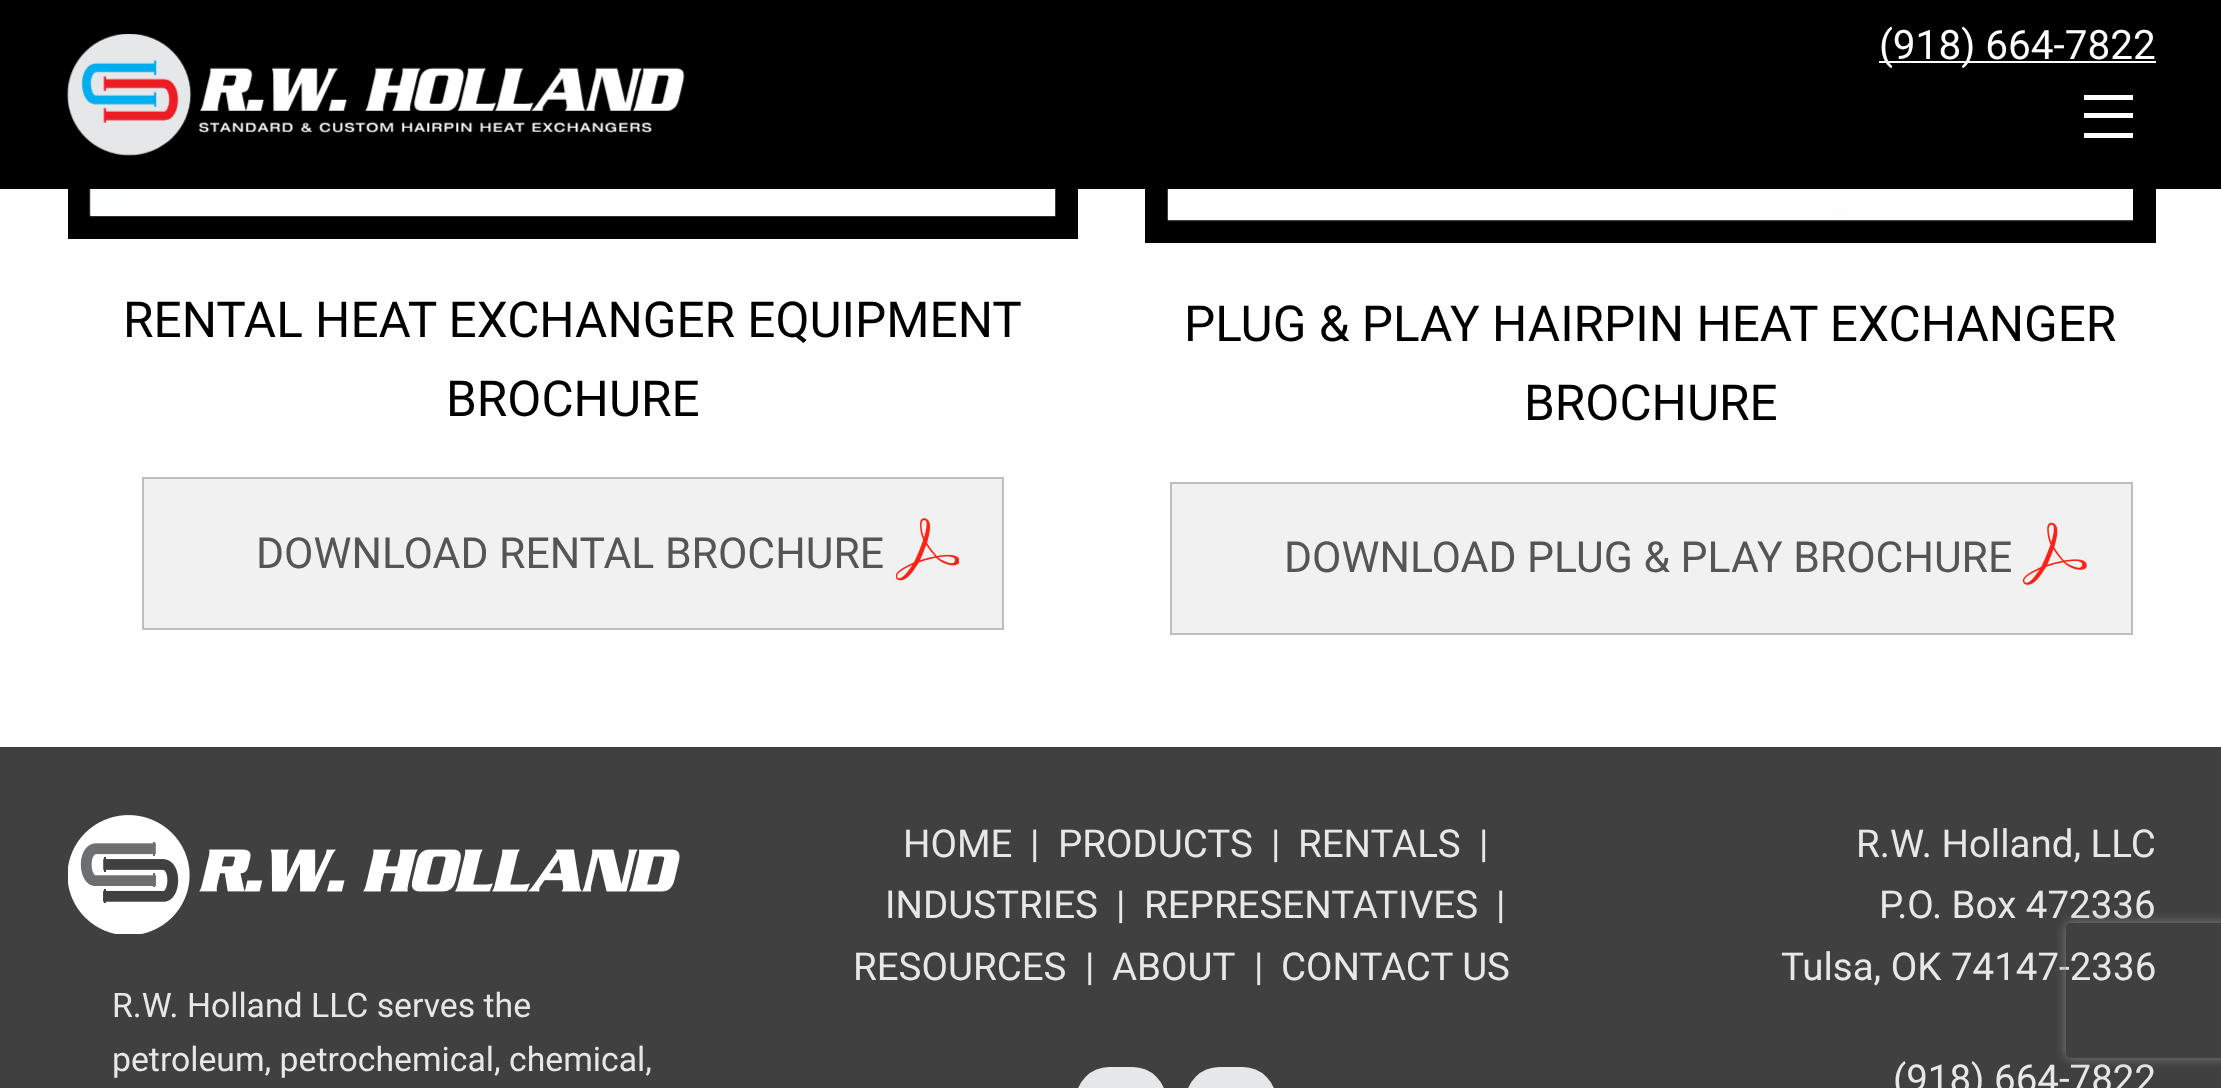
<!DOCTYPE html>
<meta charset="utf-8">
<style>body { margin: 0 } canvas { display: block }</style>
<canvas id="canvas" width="2221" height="1088"></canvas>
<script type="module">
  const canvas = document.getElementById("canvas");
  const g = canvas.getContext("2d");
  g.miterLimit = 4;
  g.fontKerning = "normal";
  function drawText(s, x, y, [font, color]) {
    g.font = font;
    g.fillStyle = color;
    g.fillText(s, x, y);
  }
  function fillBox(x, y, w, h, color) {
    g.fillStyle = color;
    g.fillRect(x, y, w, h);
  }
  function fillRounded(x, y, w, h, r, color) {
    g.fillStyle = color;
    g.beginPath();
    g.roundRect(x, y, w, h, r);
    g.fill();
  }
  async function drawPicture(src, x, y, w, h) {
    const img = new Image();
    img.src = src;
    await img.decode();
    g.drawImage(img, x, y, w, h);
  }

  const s1 = ["40.5px Roboto", "#FFFFFF"];
  const s2 = ["49.5px Roboto", "#000000"];
  const s3 = ["42.75px Roboto", "#555555"];
  const s4 = ["38.5px Roboto", "#E6E7E8"];
  const s5 = ["33.75px Roboto", "#E6E7E8"];

  fillBox(0, 0, 2221, 1088, "#FFFFFF");
  g.strokeStyle = "#000000";
  g.lineWidth = 23;
  g.strokeRect(79.5, -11.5, 987, 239);
  g.strokeRect(1156.5, -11.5, 988, 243);
  fillBox(0, 0, 2221, 189, "#000000");
  await drawPicture("pic1.png", 67, 34, 618, 122);
  fillBox(1879, 61, 277, 2, "#FFFFFF");
  drawText("(918) 664-7822", 1879, 59, s1);
  fillBox(2084, 133, 49, 5, "#FFFFFF");
  fillBox(2084, 95, 49, 5, "#FFFFFF");
  fillBox(2084, 113, 49, 5, "#FFFFFF");
  await drawPicture("pic2.png", 89, 189, 967, 28);
  drawText("RENTAL HEAT EXCHANGER EQUIPMENT", 123, 337, s2);
  drawText("BROCHURE", 446, 416, s2);
  g.fillStyle = "#F1F1F2";
  g.beginPath();
  g.rect(143, 478, 860, 151);
  g.fill();
  g.strokeStyle = "#BBBDBF";
  g.lineWidth = 2;
  g.stroke();
  drawText("DOWNLOAD RENTAL BROCHURE", 256, 568, s3);
  await drawPicture("pic3.png", 896, 518, 63, 63);
  await drawPicture("pic4.png", 1167, 189, 966, 33);
  drawText("PLUG & PLAY HAIRPIN HEAT EXCHANGER", 1184, 341, s2);
  drawText("BROCHURE", 1524, 420, s2);
  g.fillStyle = "#F1F1F2";
  g.beginPath();
  g.rect(1171, 483, 961, 151);
  g.fill();
  g.stroke();
  drawText("DOWNLOAD PLUG & PLAY BROCHURE", 1284, 572, s3);
  await drawPicture("pic5.png", 2023, 522, 64, 63);
  fillBox(0, 747, 2221, 341, "#404041");
  drawText("HOME", 903, 857, s4);
  drawText("|", 1030, 857, s4);
  drawText("PRODUCTS", 1058, 857, s4);
  drawText("|", 1271, 857, s4);
  drawText("RENTALS", 1298, 857, s4);
  drawText("|", 1479, 857, s4);
  drawText("INDUSTRIES", 885, 918, s4);
  drawText("|", 1116, 918, s4);
  drawText("REPRESENTATIVES", 1144, 918, s4);
  drawText("|", 1496, 918, s4);
  drawText("RESOURCES", 853, 980, s4);
  drawText("|", 1085, 980, s4);
  drawText("ABOUT", 1112, 980, s4);
  drawText("|", 1254, 980, s4);
  drawText("CONTACT US", 1281, 980, s4);
  fillRounded(1076, 1067, 90, 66, 45, "#E6E7E8");
  fillRounded(1186, 1067, 90, 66, 45, "#E6E7E8");
  drawText("R.W. Holland, LLC", 1856, 857, s4);
  drawText("P.O. Box 472336", 1879, 918, s4);
  drawText("Tulsa, OK 74147-2336", 1781, 980, s4);
  drawText("(918) 664-7822", 1893, 1092, s4);
  await drawPicture("pic6.png", 68, 815, 612, 119);
  drawText("R.W. Holland LLC serves the", 112, 1017, s5);
  drawText("petroleum, petrochemical, chemical,", 112, 1071, s5);
  g.save();
  g.beginPath();
  g.moveTo(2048, 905);
  g.lineTo(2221, 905);
  g.lineTo(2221, 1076);
  g.lineTo(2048, 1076);
  g.closePath();
  g.moveTo(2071, 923);
  g.lineTo(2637, 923);
  g.bezierCurveTo(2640, 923, 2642, 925, 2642, 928);
  g.lineTo(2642, 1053);
  g.bezierCurveTo(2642, 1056, 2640, 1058, 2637, 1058);
  g.lineTo(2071, 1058);
  g.bezierCurveTo(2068, 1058, 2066, 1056, 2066, 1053);
  g.lineTo(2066, 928);
  g.bezierCurveTo(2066, 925, 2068, 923, 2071, 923);
  g.closePath();
  g.clip("evenodd");
  g.fillStyle = "#808080";
  g.filter = "blur(5.5px)";
  g.beginPath();
  g.roundRect(2066, 923, 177, 135, 5);
  g.fill();
  g.filter = "none";
  g.restore();
</script>
